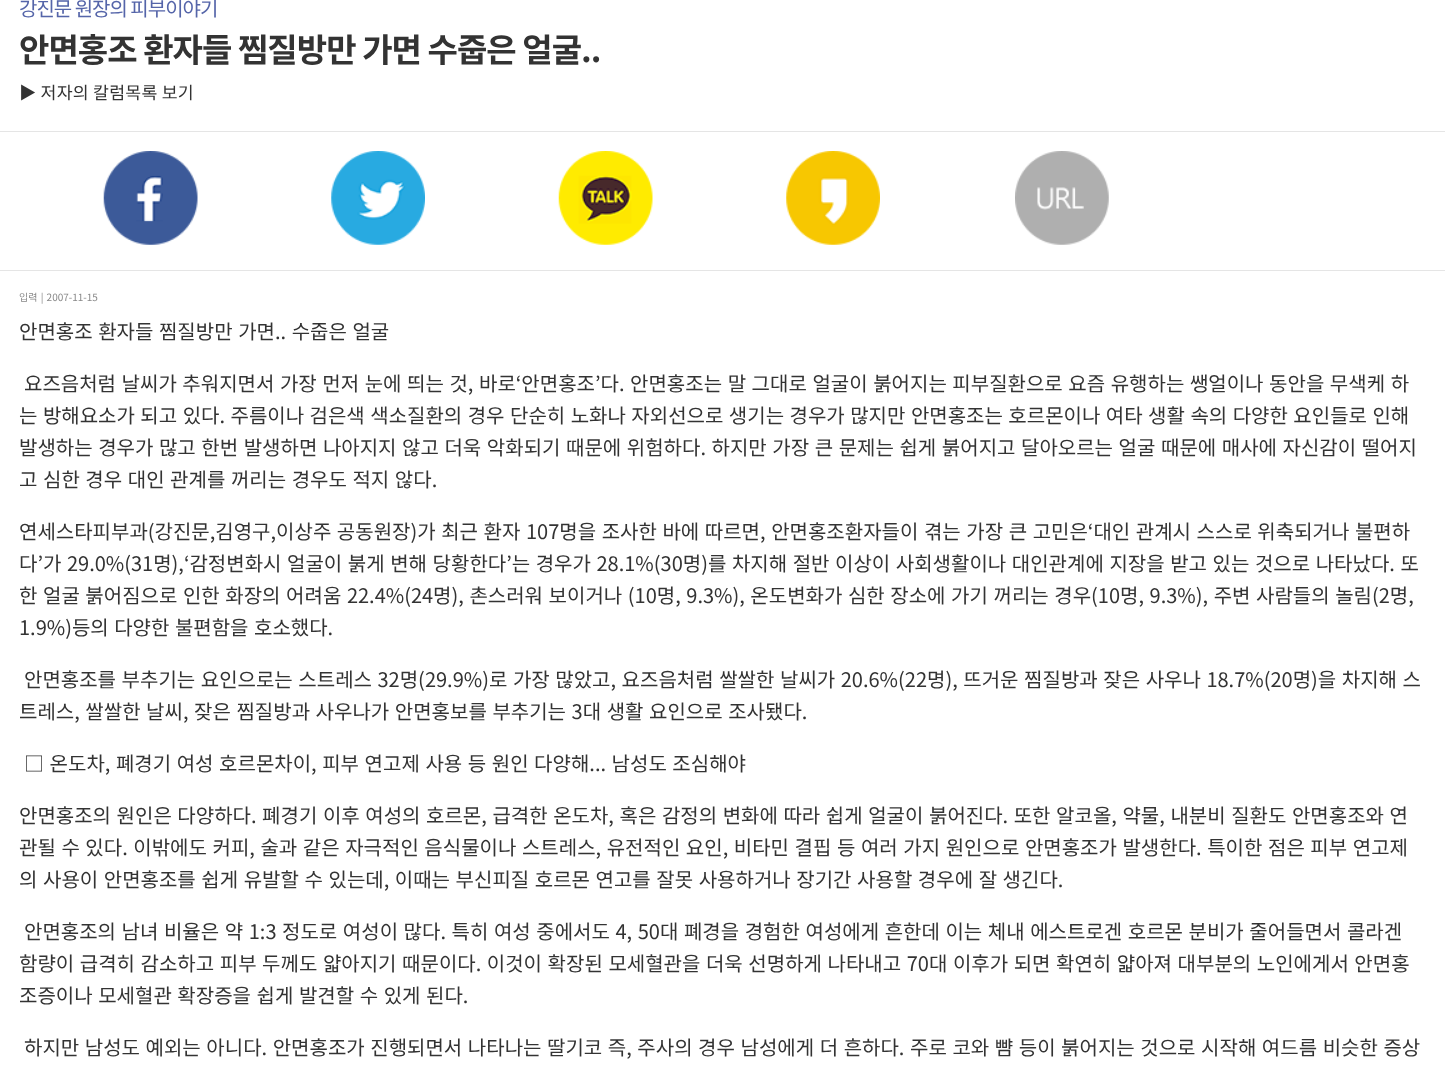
<!DOCTYPE html>
<meta charset="utf-8">
<style>body { margin: 0 } canvas { display: block }</style>
<canvas id="canvas" width="1445" height="1069"></canvas>
<script type="module">
  const canvas = document.getElementById("canvas");
  const g = canvas.getContext("2d");
  g.miterLimit = 4;
  g.fontKerning = "normal";
  function drawText(s, x, y, [font, color]) {
    g.font = font;
    g.fillStyle = color;
    g.fillText(s, x, y);
  }
  function fillBox(x, y, w, h, color) {
    g.fillStyle = color;
    g.fillRect(x, y, w, h);
  }
  async function drawPicture(src, x, y, w, h) {
    const img = new Image();
    img.src = src;
    await img.decode();
    g.drawImage(img, x, y, w, h);
  }

  const s1 = ["20px Noto Sans KR", "#5565A9"];
  const s2 = ["bold 33px Noto Sans KR", "#333333"];
  const s3 = ["17.25px Noto Sans KR", "#333333"];
  const s4 = ["10px Noto Sans KR", "#888888"];
  const s5 = ["20px Noto Sans KR", "#333333"];

  fillBox(0, 0, 1445, 1069, "#FFFFFF");
  g.letterSpacing = "-1px";
  drawText("강진문 원장의 피부이야기", 19, 16, s1);
  g.letterSpacing = "-0.95px";
  drawText("안면홍조 환자들 찜질방만 가면 수줍은 얼굴..", 19, 62, s2);
  g.letterSpacing = "0.25px";
  drawText("▶ 저자의 칼럼목록 보기", 19, 99, s3);
  fillBox(0, 131, 1445, 1, "#E5E5E5");
  fillBox(0, 270, 1445, 1, "#E5E5E5");
  await drawPicture("pic1.png", 103, 151, 95, 94);
  await drawPicture("pic2.png", 331, 151, 94, 94);
  await drawPicture("pic3.png", 558, 151, 95, 94);
  await drawPicture("pic4.png", 786, 151, 94, 94);
  await drawPicture("pic5.png", 1015, 151, 94, 94);
  g.letterSpacing = "0px";
  g.wordSpacing = "1px";
  drawText("입력 | 2007-11-15", 19, 301, s4);
  g.wordSpacing = "1.1px";
  drawText("안면홍조 환자들 찜질방만 가면.. 수줍은 얼굴", 19, 339, s5);
  drawText("요즈음처럼 날씨가 추워지면서 가장 먼저 눈에 띄는 것, 바로‘안면홍조’다. 안면홍조는 말 그대로 얼굴이 붉어지는 피부질환으로 요즘 유행하는 쌩얼이나 동안을 무색케 하", 24, 391, s5);
  g.wordSpacing = "1px";
  drawText("는 방해요소가 되고 있다. 주름이나 검은색 색소질환의 경우 단순히 노화나 자외선으로 생기는 경우가 많지만 안면홍조는 호르몬이나 여타 생활 속의 다양한 요인들로 인해", 19, 423, s5);
  g.wordSpacing = "1.1px";
  drawText("발생하는 경우가 많고 한번 발생하면 나아지지 않고 더욱 악화되기 때문에 위험하다. 하지만 가장 큰 문제는 쉽게 붉어지고 달아오르는 얼굴 때문에 매사에 자신감이 떨어지", 19, 455, s5);
  drawText("고 심한 경우 대인 관계를 꺼리는 경우도 적지 않다.", 19, 487, s5);
  drawText("연세스타피부과(강진문,김영구,이상주 공동원장)가 최근 환자 107명을 조사한 바에 따르면, 안면홍조환자들이 겪는 가장 큰 고민은‘대인 관계시 스스로 위축되거나 불편하", 19, 539, s5);
  drawText("다’가 29.0%(31명),‘감정변화시 얼굴이 붉게 변해 당황한다’는 경우가 28.1%(30명)를 차지해 절반 이상이 사회생활이나 대인관계에 지장을 받고 있는 것으로 나타났다. 또", 19, 571, s5);
  drawText("한 얼굴 붉어짐으로 인한 화장의 어려움 22.4%(24명), 촌스러워 보이거나 (10명, 9.3%), 온도변화가 심한 장소에 가기 꺼리는 경우(10명, 9.3%), 주변 사람들의 놀림(2명,", 19, 603, s5);
  g.wordSpacing = "1px";
  drawText("1.9%)등의 다양한 불편함을 호소했다.", 19, 635, s5);
  g.wordSpacing = "1.1px";
  drawText("안면홍조를 부추기는 요인으로는 스트레스 32명(29.9%)로 가장 많았고, 요즈음처럼 쌀쌀한 날씨가 20.6%(22명), 뜨거운 찜질방과 잦은 사우나 18.7%(20명)을 차지해 스", 24, 687, s5);
  drawText("트레스, 쌀쌀한 날씨, 잦은 찜질방과 사우나가 안면홍보를 부추기는 3대 생활 요인으로 조사됐다.", 19, 719, s5);
  drawText("□ 온도차, 폐경기 여성 호르몬차이, 피부 연고제 사용 등 원인 다양해... 남성도 조심해야", 24, 771, s5);
  drawText("안면홍조의 원인은 다양하다. 폐경기 이후 여성의 호르몬, 급격한 온도차, 혹은 감정의 변화에 따라 쉽게 얼굴이 붉어진다. 또한 알코올, 약물, 내분비 질환도 안면홍조와 연", 19, 823, s5);
  drawText("관될 수 있다. 이밖에도 커피, 술과 같은 자극적인 음식물이나 스트레스, 유전적인 요인, 비타민 결핍 등 여러 가지 원인으로 안면홍조가 발생한다. 특이한 점은 피부 연고제", 19, 855, s5);
  drawText("의 사용이 안면홍조를 쉽게 유발할 수 있는데, 이때는 부신피질 호르몬 연고를 잘못 사용하거나 장기간 사용할 경우에 잘 생긴다.", 19, 887, s5);
  drawText("안면홍조의 남녀 비율은 약 1:3 정도로 여성이 많다. 특히 여성 중에서도 4, 50대 폐경을 경험한 여성에게 흔한데 이는 체내 에스트로겐 호르몬 분비가 줄어들면서 콜라겐", 24, 939, s5);
  drawText("함량이 급격히 감소하고 피부 두께도 얇아지기 때문이다. 이것이 확장된 모세혈관을 더욱 선명하게 나타내고 70대 이후가 되면 확연히 얇아져 대부분의 노인에게서 안면홍", 19, 971, s5);
  drawText("조증이나 모세혈관 확장증을 쉽게 발견할 수 있게 된다.", 19, 1003, s5);
  drawText("하지만 남성도 예외는 아니다. 안면홍조가 진행되면서 나타나는 딸기코 즉, 주사의 경우 남성에게 더 흔하다. 주로 코와 뺨 등이 붉어지는 것으로 시작해 여드름 비슷한 증상", 24, 1055, s5);
</script>
